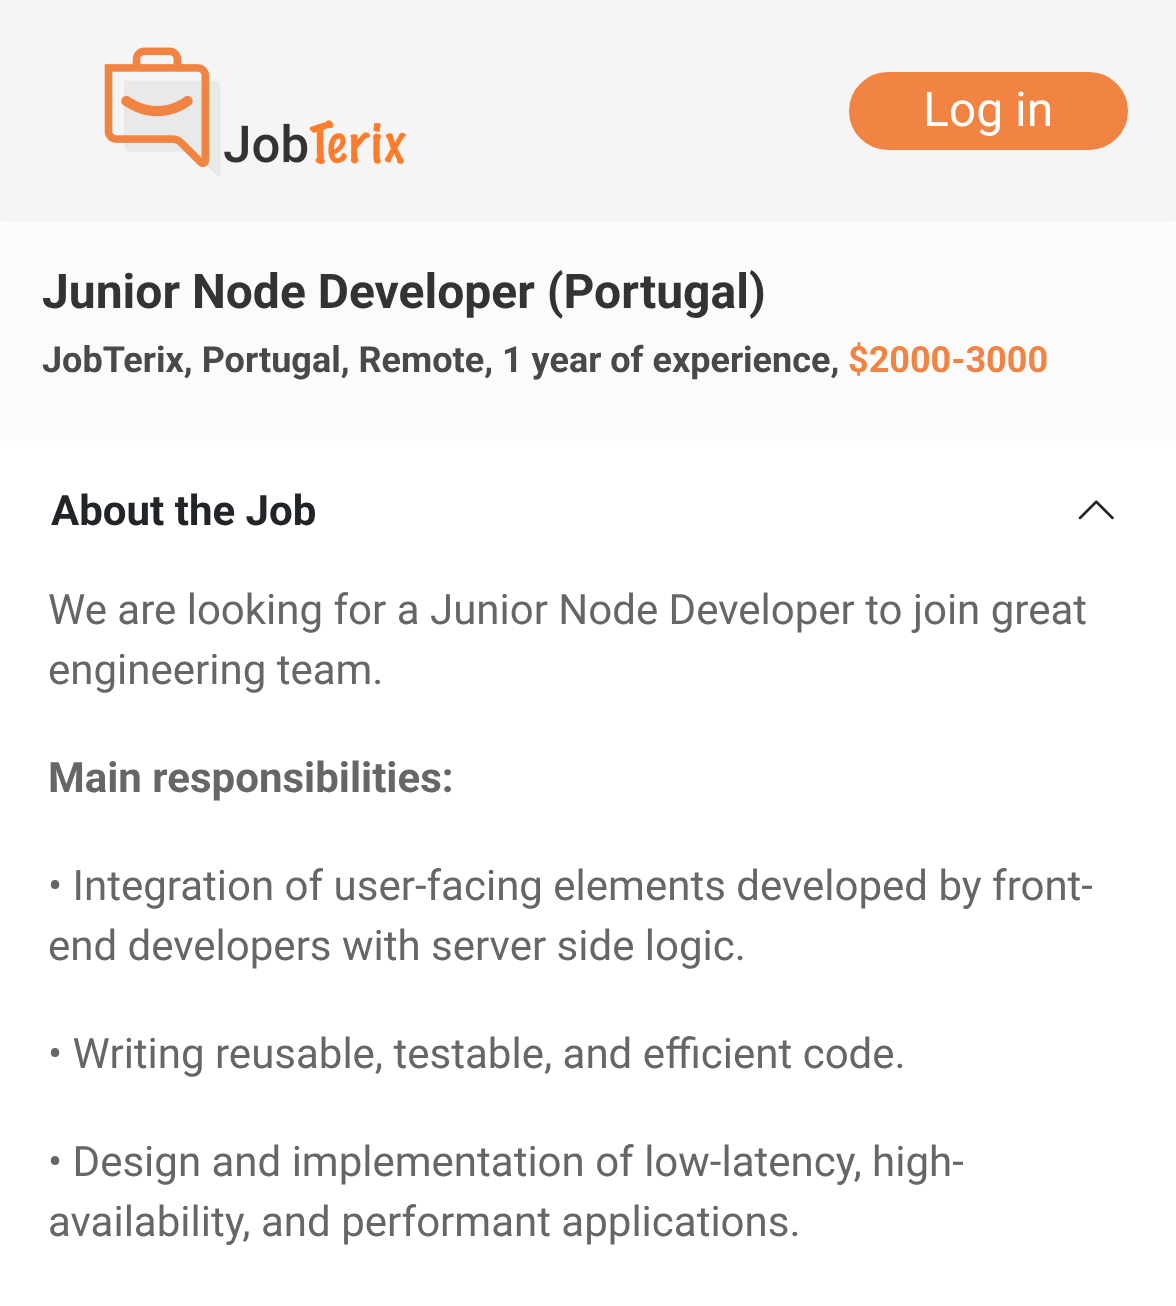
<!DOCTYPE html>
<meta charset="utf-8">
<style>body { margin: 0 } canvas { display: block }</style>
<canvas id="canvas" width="1176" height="1306"></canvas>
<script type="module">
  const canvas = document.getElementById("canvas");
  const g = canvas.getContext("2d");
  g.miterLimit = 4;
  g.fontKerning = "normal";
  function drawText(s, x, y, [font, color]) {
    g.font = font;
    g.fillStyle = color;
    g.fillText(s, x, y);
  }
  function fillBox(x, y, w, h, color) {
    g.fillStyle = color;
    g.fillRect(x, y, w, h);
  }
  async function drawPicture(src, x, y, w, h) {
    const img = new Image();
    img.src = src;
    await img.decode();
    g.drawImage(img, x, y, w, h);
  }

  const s1 = ["48px Roboto", "#FFFFFF"];
  const s2 = ["bold 48px Roboto", "#333333"];
  const s3 = ["bold 36px Roboto", "#494949"];
  const s4 = ["bold 36px Roboto", "#F18343"];
  const s5 = ["bold 42px Roboto", "#212529"];
  const s6 = ["42px Roboto", "#666666"];
  const s7 = ["bold 42px Roboto", "#666666"];

  fillBox(0, 0, 1176, 1306, "#F5F5F5");
  await drawPicture("pic1.png", 104, 47, 302, 130);
  g.fillStyle = "#F18343";
  g.beginPath();
  g.roundRect(850.5, 73.5, 276, 75, 37.5);
  g.fill();
  g.strokeStyle = "#F18343";
  g.lineWidth = 3;
  g.stroke();
  drawText("Log in", 923, 126, s1);
  fillBox(0, 222, 1176, 1084, "#FFFFFF");
  g.fillStyle = "#FBFBFB";
  g.beginPath();
  g.roundRect(0, 222, 1176, 219, [9, 9, 0, 0]);
  g.fill();
  drawText("Junior Node Developer (Portugal)", 42, 308, s2);
  drawText("JobTerix, Portugal, Remote, 1 year of experience,", 42, 372, s3);
  drawText("$2000-3000", 848, 372, s4);
  drawText("About the Job", 51, 525, s5);
  await drawPicture("pic2.png", 1078, 500, 36, 20);
  drawText("We are looking for a Junior Node Developer to join great", 48, 624, s6);
  drawText("engineering team.", 48, 684, s6);
  drawText("Main responsibilities:", 48, 792, s7);
  drawText("• Integration of user-facing elements developed by front-", 48, 900, s6);
  drawText("end developers with server side logic.", 48, 960, s6);
  drawText("• Writing reusable, testable, and efficient code.", 48, 1068, s6);
  drawText("• Design and implementation of low-latency, high-", 48, 1176, s6);
  drawText("availability, and performant applications.", 48, 1236, s6);
</script>
